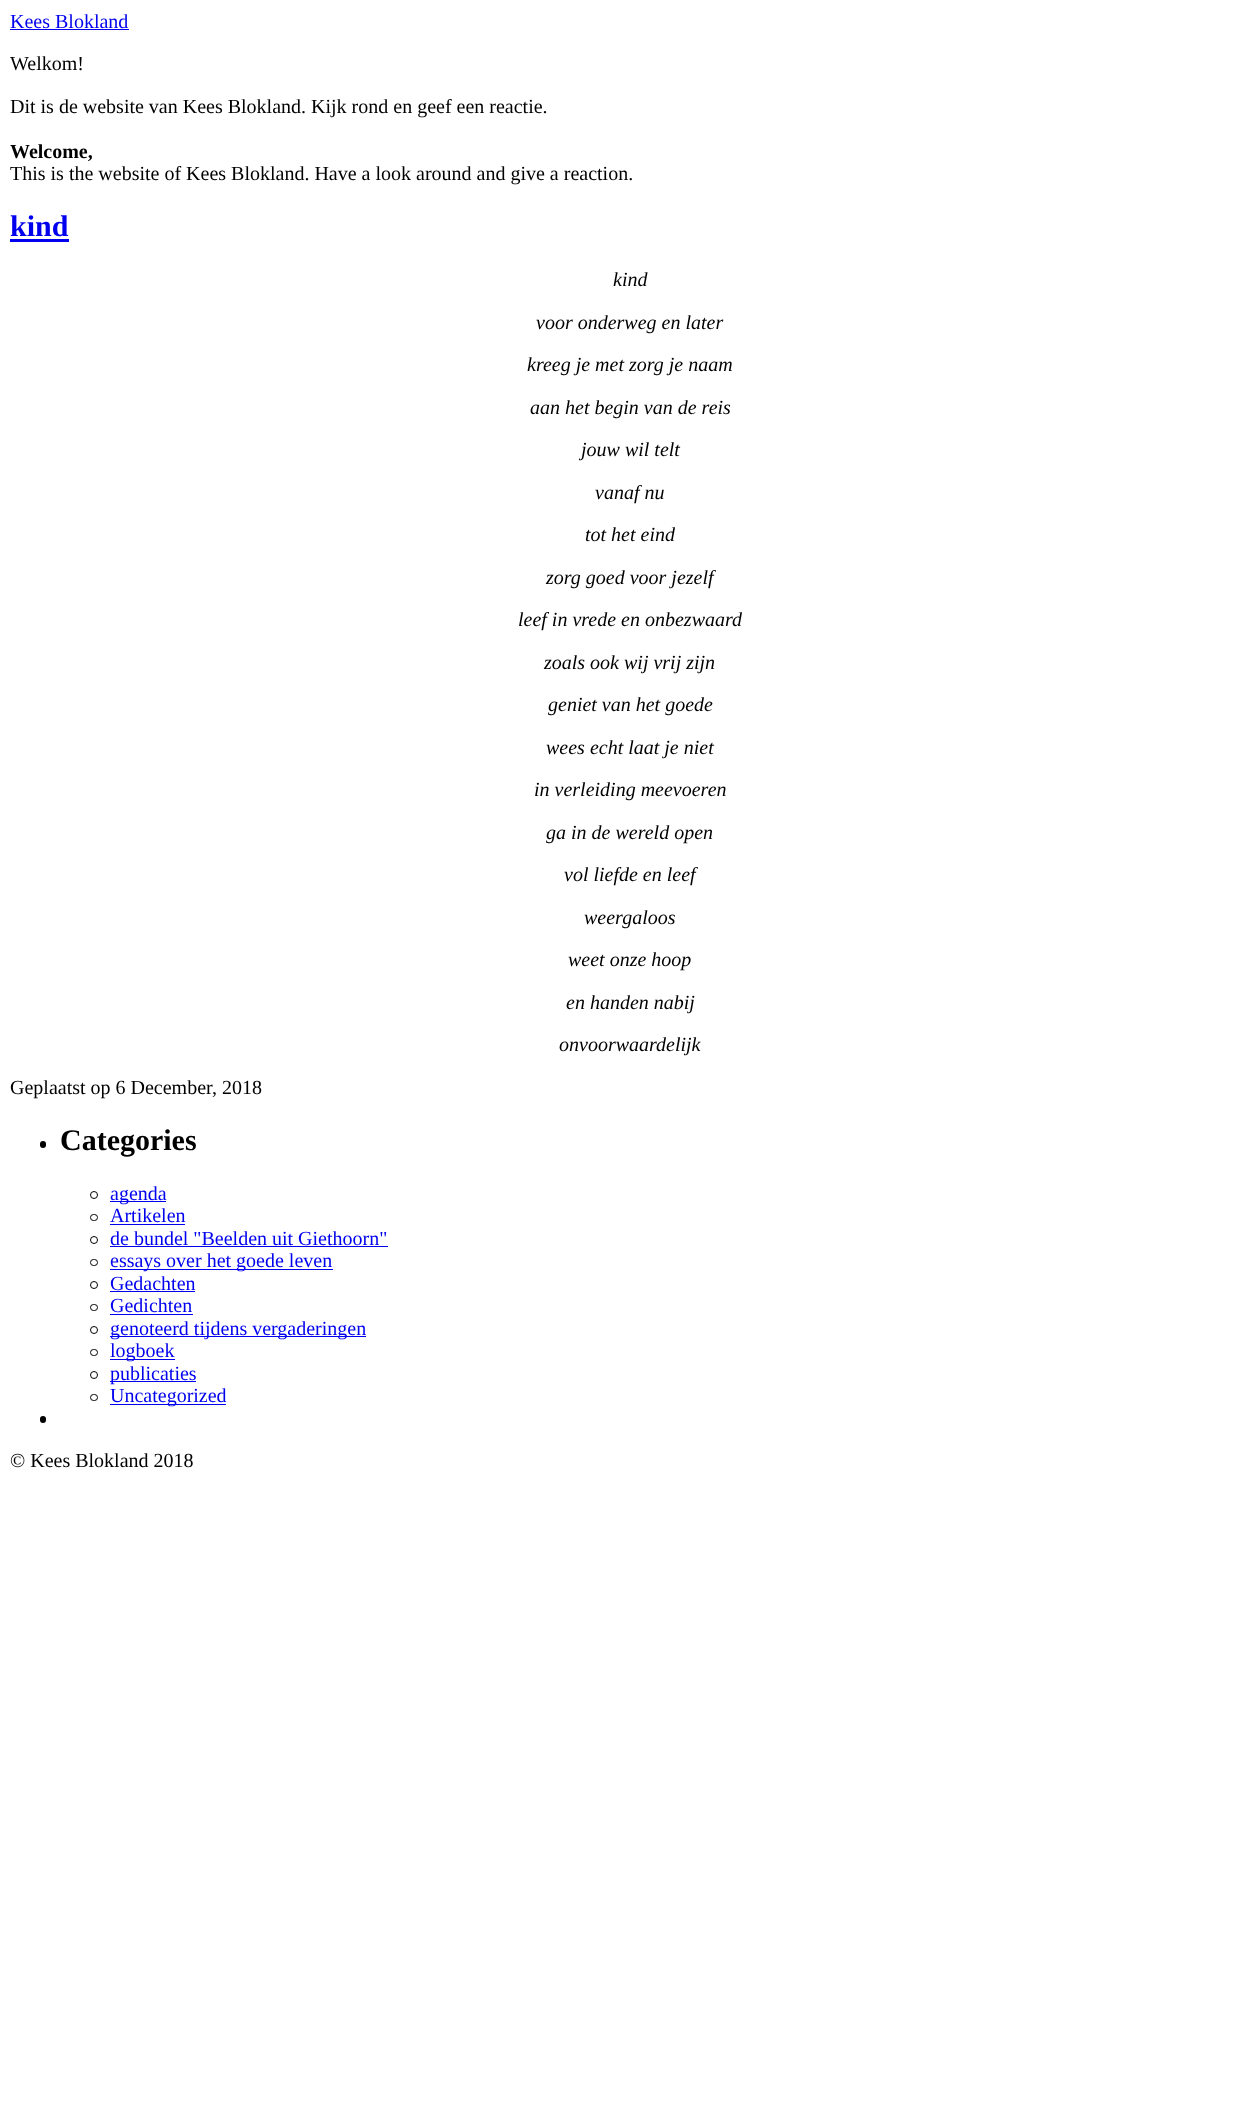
<!DOCTYPE html>
<meta charset="utf-8">
<style>body { margin: 0 } canvas { display: block }</style>
<canvas id="canvas" width="1260" height="2115"></canvas>
<script type="module">
  const canvas = document.getElementById("canvas");
  const g = canvas.getContext("2d");
  g.miterLimit = 4;
  g.fontKerning = "normal";
  function drawText(s, x, y, [font, color]) {
    g.font = font;
    g.fillStyle = color;
    g.fillText(s, x, y);
  }
  function fillBox(x, y, w, h, color) {
    g.fillStyle = color;
    g.fillRect(x, y, w, h);
  }
  function fillRounded(x, y, w, h, r, color) {
    g.fillStyle = color;
    g.beginPath();
    g.roundRect(x, y, w, h, r);
    g.fill();
  }

  const s1 = ["20px Liberation Serif", "#0000EE"];
  const s2 = ["20px Liberation Serif", "#000000"];
  const s3 = ["bold 20px Liberation Serif", "#000000"];
  const s4 = ["bold 30px Liberation Serif", "#0000EE"];
  const s5 = ["italic 20px Liberation Serif", "#000000"];
  const s6 = ["bold 30px Liberation Serif", "#000000"];

  fillBox(0, 0, 1260, 2115, "#FFFFFF");
  drawText("Kees Blokland", 10, 28, s1);
  fillBox(10, 29, 119, 1, "#0000EE");
  drawText("Welkom!", 10, 70, s2);
  drawText("Dit is de website van Kees Blokland. Kijk rond en geef een reactie.", 10, 113, s2);
  drawText("Welcome,", 10, 158, s3);
  drawText("This is the website of Kees Blokland. Have a look around and give a reaction.", 10, 180, s2);
  drawText("kind", 10, 236, s4);
  fillBox(10, 239, 59, 3, "#0000EE");
  drawText("kind", 613, 286, s5);
  drawText("voor onderweg en later", 536, 329, s5);
  drawText("kreeg je met zorg je naam", 527, 371, s5);
  drawText("aan het begin van de reis", 530, 414, s5);
  drawText("jouw wil telt", 581, 456, s5);
  drawText("vanaf nu", 595, 499, s5);
  drawText("tot het eind", 585, 541, s5);
  drawText("zorg goed voor jezelf", 546, 584, s5);
  drawText("leef in vrede en onbezwaard", 518, 626, s5);
  drawText("zoals ook wij vrij zijn", 544, 669, s5);
  drawText("geniet van het goede", 548, 711, s5);
  drawText("wees echt laat je niet", 546, 754, s5);
  drawText("in verleiding meevoeren", 534, 796, s5);
  drawText("ga in de wereld open", 546, 839, s5);
  drawText("vol liefde en leef", 564, 881, s5);
  drawText("weergaloos", 584, 924, s5);
  drawText("weet onze hoop", 568, 966, s5);
  drawText("en handen nabij", 566, 1009, s5);
  drawText("onvoorwaardelijk", 559, 1051, s5);
  drawText("Geplaatst op 6 December, 2018", 10, 1094, s2);
  fillRounded(40, 1141, 6, 7, 3, "#000000");
  drawText("Categories", 60, 1150, s6);
  g.beginPath();
  g.arc(94, 1195, 3.5, 0, Math.PI * 2);
  g.strokeStyle = "#000000";
  g.stroke();
  fillBox(110, 1201, 56, 1, "#0000EE");
  drawText("agenda", 110, 1200, s1);
  g.beginPath();
  g.roundRect(90.5, 1214.5, 7, 6, 3);
  g.stroke();
  drawText("Artikelen", 110, 1222, s1);
  fillBox(110, 1224, 75, 1, "#0000EE");
  g.beginPath();
  g.arc(94, 1240, 3.5, 0, Math.PI * 2);
  g.stroke();
  drawText("de bundel \"Beelden uit Giethoorn\"", 110, 1245, s1);
  fillBox(110, 1246, 278, 1, "#0000EE");
  g.beginPath();
  g.roundRect(90.5, 1259.5, 7, 6, 3);
  g.stroke();
  fillBox(110, 1269, 223, 1, "#0000EE");
  drawText("essays over het goede leven", 110, 1267, s1);
  g.beginPath();
  g.arc(94, 1285, 3.5, 0, Math.PI * 2);
  g.stroke();
  drawText("Gedachten", 110, 1290, s1);
  fillBox(110, 1291, 85, 1, "#0000EE");
  g.beginPath();
  g.roundRect(90.5, 1304.5, 7, 6, 3);
  g.stroke();
  drawText("Gedichten", 110, 1312, s1);
  fillBox(110, 1314, 83, 1, "#0000EE");
  g.beginPath();
  g.arc(94, 1330, 3.5, 0, Math.PI * 2);
  g.stroke();
  fillBox(110, 1336, 256, 1, "#0000EE");
  drawText("genoteerd tijdens vergaderingen", 110, 1335, s1);
  g.beginPath();
  g.roundRect(90.5, 1349.5, 7, 6, 3);
  g.stroke();
  fillBox(110, 1359, 65, 1, "#0000EE");
  drawText("logboek", 110, 1357, s1);
  g.beginPath();
  g.arc(94, 1375, 3.5, 0, Math.PI * 2);
  g.stroke();
  fillBox(110, 1381, 86, 1, "#0000EE");
  drawText("publicaties", 110, 1380, s1);
  g.beginPath();
  g.roundRect(90.5, 1394.5, 7, 6, 3);
  g.stroke();
  fillBox(110, 1404, 116, 1, "#0000EE");
  drawText("Uncategorized", 110, 1402, s1);
  fillRounded(40, 1416, 6, 7, 3, "#000000");
  drawText("© Kees Blokland 2018", 10, 1467, s2);
</script>
